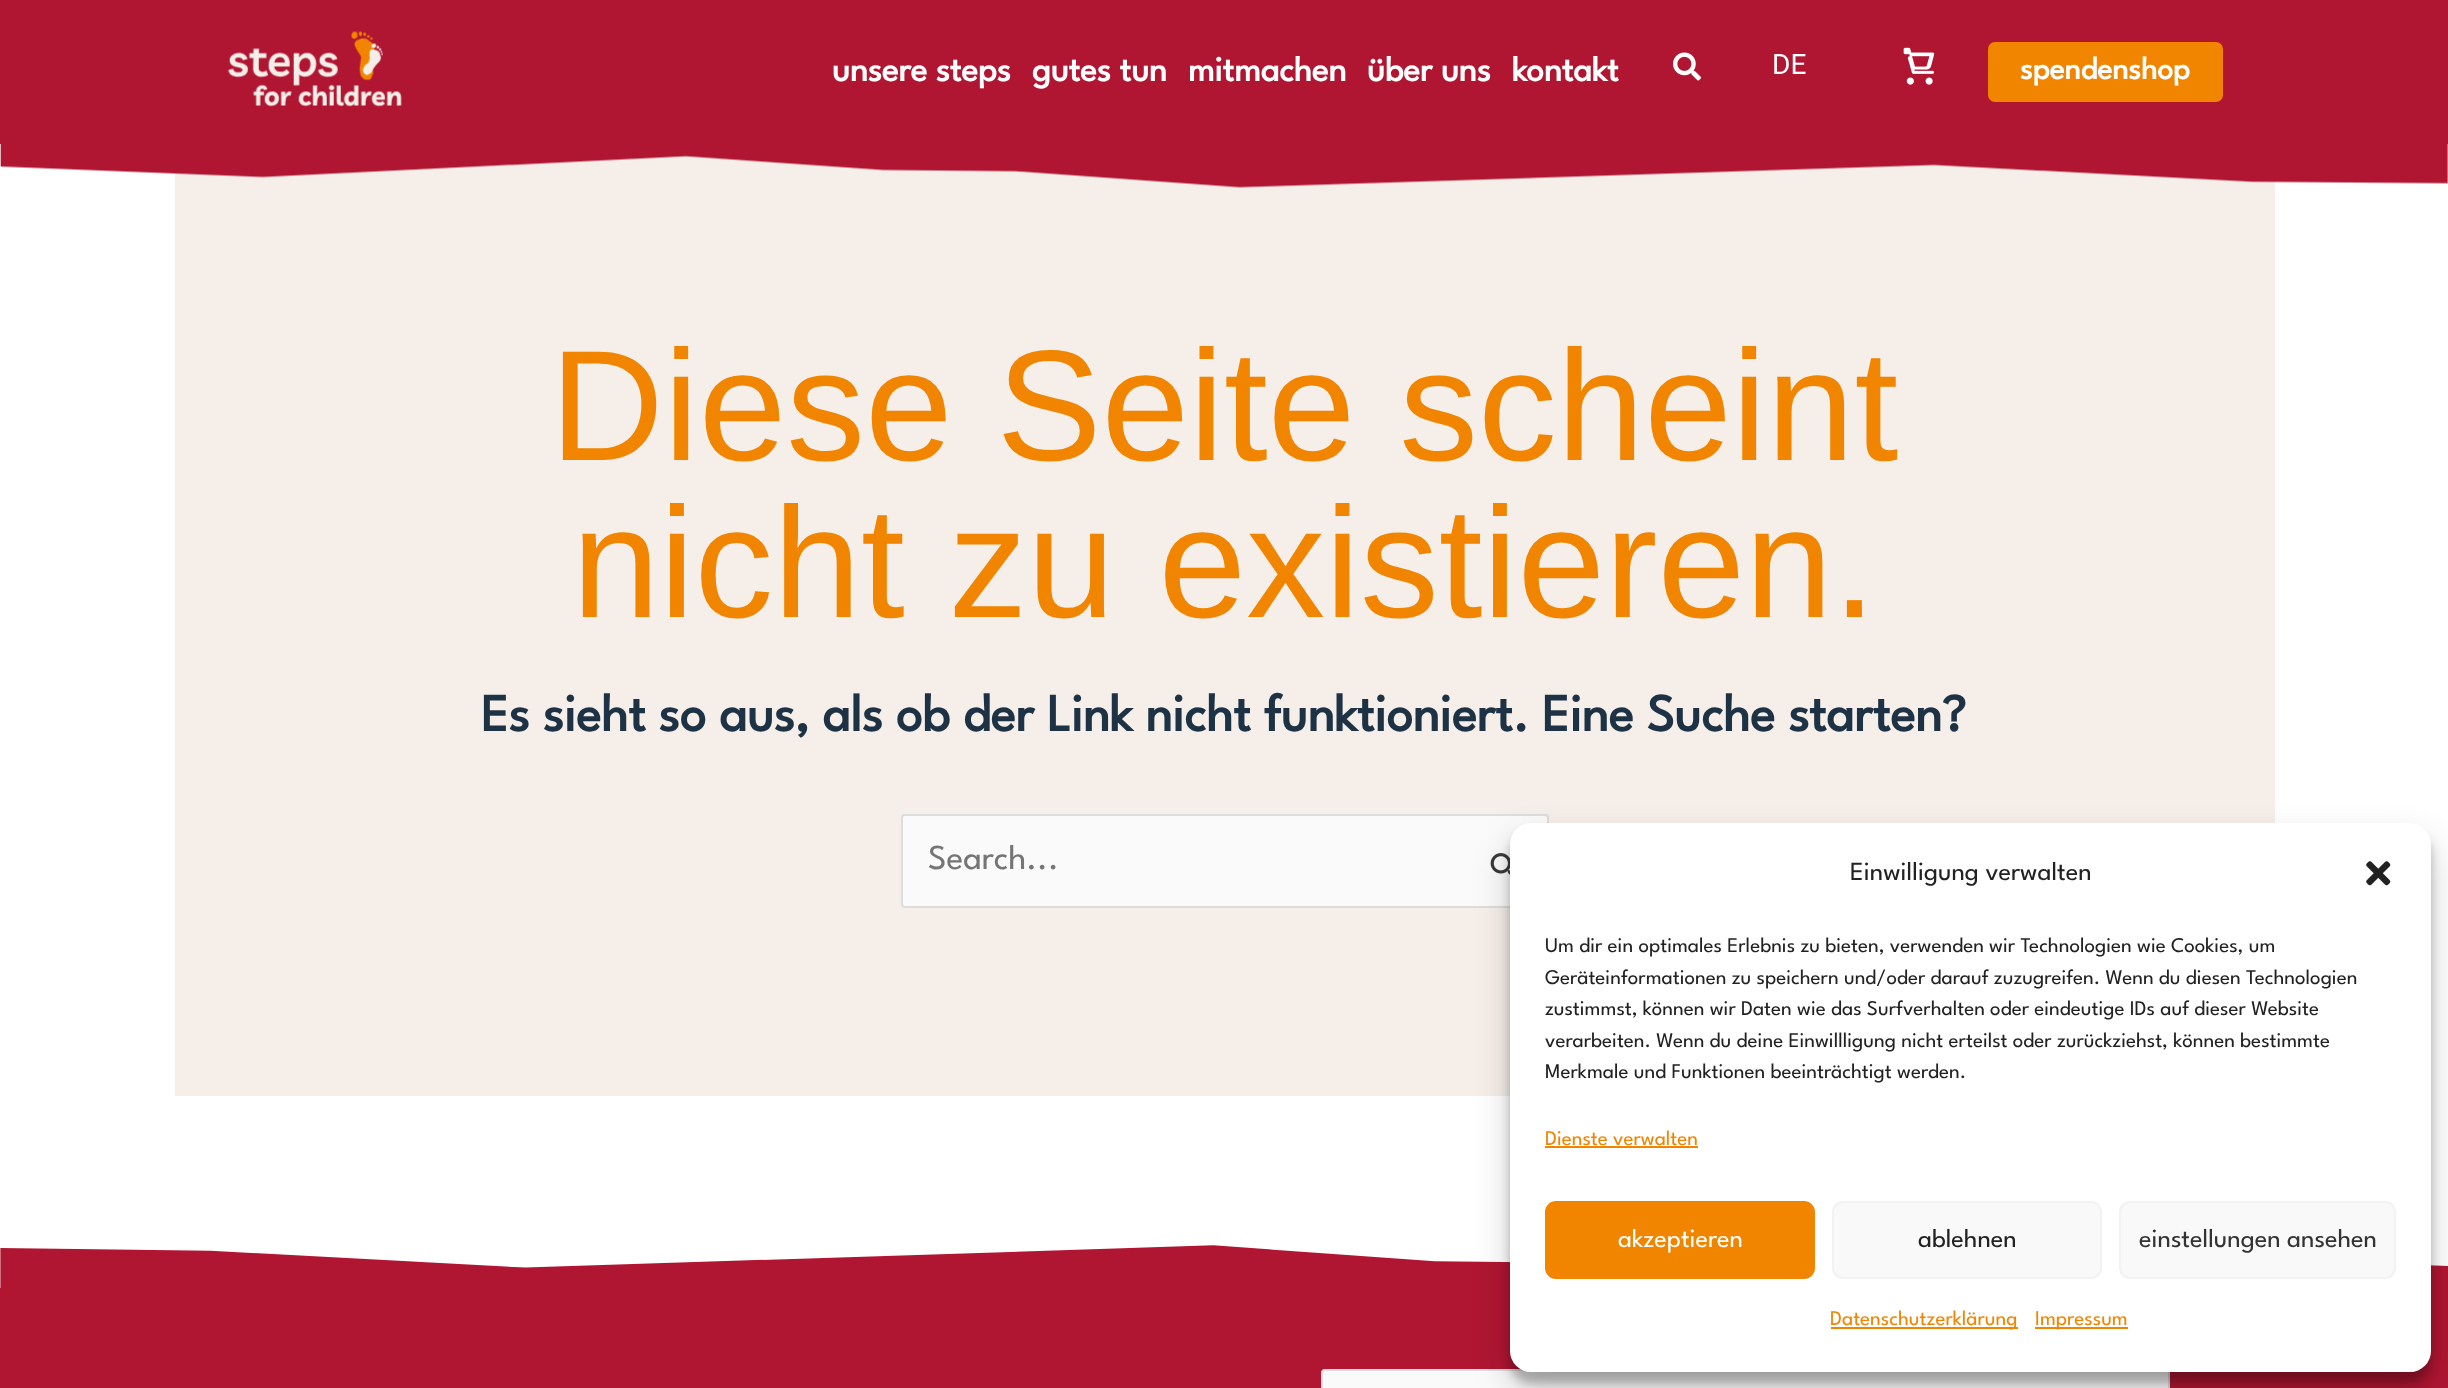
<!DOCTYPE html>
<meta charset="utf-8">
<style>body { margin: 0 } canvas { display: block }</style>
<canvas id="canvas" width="2448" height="1388"></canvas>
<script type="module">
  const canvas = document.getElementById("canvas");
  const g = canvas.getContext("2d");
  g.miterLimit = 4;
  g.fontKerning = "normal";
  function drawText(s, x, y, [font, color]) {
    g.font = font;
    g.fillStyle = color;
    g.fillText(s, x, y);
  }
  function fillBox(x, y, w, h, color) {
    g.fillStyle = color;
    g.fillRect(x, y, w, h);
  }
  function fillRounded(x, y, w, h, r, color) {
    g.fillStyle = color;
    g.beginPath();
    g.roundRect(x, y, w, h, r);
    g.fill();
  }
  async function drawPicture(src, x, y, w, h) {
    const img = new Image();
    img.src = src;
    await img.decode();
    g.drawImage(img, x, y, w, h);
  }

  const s1 = ["bold 35px League Spartan", "#FFFFFF"];
  const s2 = ["28px Roboto", "#FFFFFF"];
  const s3 = ["bold 31.5px League Spartan", "#FFFFFF"];
  const s4 = ["157.5px Liberation Sans", "#F18500"];
  const s5 = ["bold 52.5px League Spartan", "#1E3245"];
  const s6 = ["100 35px League Spartan", "#757575"];
  const s7 = ["100 26.25px League Spartan", "#222222"];
  const s8 = ["100 21px League Spartan", "#222222"];
  const s9 = ["100 21px League Spartan", "#F18500"];
  const s10 = ["100 26.25px League Spartan", "#FFFFFF"];
  const s11 = ["100 26.25px League Spartan", "#333333"];

  fillBox(0, 0, 2448, 1388, "#FFFFFF");
  fillBox(0, 0, 2448, 144, "#B01632");
  await drawPicture("pic1.png", 227, 31, 175, 76);
  drawText("unsere steps", 832, 81, s1);
  drawText("gutes tun", 1032, 81, s1);
  drawText("mitmachen", 1188, 81, s1);
  drawText("über uns", 1367, 81, s1);
  drawText("kontakt", 1512, 81, s1);
  await drawPicture("pic2.png", 1673, 52, 28, 29);
  drawText("DE", 1772, 74, s2);
  await drawPicture("pic3.png", 1903, 47, 32, 38);
  fillRounded(1988, 42, 235, 60, 7, "#F18500");
  drawText("spendenshop", 2020, 79, s3);
  fillBox(175, 155, 2100, 941, "#F5EEE9");
  await drawPicture("pic4.png", 0, 144, 2448, 44);
  drawText("Diese Seite scheint", 550, 460, s4);
  drawText("nicht zu existieren.", 572, 617, s4);
  drawText("Es sieht so aus, als ob der Link nicht funktioniert. Eine Suche starten?", 481, 731, s5);
  g.fillStyle = "#FAFAFA";
  g.beginPath();
  g.roundRect(902, 815, 646, 92, 3);
  g.fill();
  g.strokeStyle = "#DDDDDD";
  g.lineWidth = 2;
  g.stroke();
  drawText("Search...", 928, 869, s6);
  await drawPicture("pic5.png", 1490, 853, 20, 22);
  await drawPicture("pic6.png", 0, 1245, 2448, 43);
  fillBox(0, 1288, 2448, 100, "#B01632");
  g.fillStyle = "#FAFAFA";
  g.beginPath();
  g.roundRect(1322, 1370, 847, 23, 3);
  g.fill();
  g.stroke();
  g.fillStyle = "rgba(0, 0, 0, 0.23)";
  g.filter = "blur(5px)";
  g.beginPath();
  g.roundRect(1510, 833, 921, 550, 21);
  g.fill();
  g.filter = "none";
  g.fillStyle = "rgba(0, 0, 0, 0.19)";
  g.filter = "blur(17.5px)";
  g.beginPath();
  g.roundRect(1510, 840, 921, 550, 21);
  g.fill();
  g.filter = "none";
  fillRounded(1510, 823, 921, 549, 21, "#FFFFFF");
  drawText("Einwilligung verwalten", 1850, 880, s7);
  await drawPicture("pic7.png", 2366, 861, 25, 25);
  drawText("Um dir ein optimales Erlebnis zu bieten, verwenden wir Technologien wie Cookies, um", 1545, 952, s8);
  drawText("Geräteinformationen zu speichern und/oder darauf zuzugreifen. Wenn du diesen Technologien", 1545, 984, s8);
  drawText("zustimmst, können wir Daten wie das Surfverhalten oder eindeutige IDs auf dieser Website", 1545, 1015, s8);
  drawText("verarbeiten. Wenn du deine Einwillligung nicht erteilst oder zurückziehst, können bestimmte", 1545, 1047, s8);
  drawText("Merkmale und Funktionen beeinträchtigt werden.", 1545, 1078, s8);
  drawText("Dienste verwalten", 1545, 1145, s9);
  fillBox(1545, 1146, 153, 2, "#F18500");
  g.beginPath();
  g.roundRect(1546, 1202, 268, 76, 10);
  g.fill();
  g.strokeStyle = "#F18500";
  g.stroke();
  drawText("akzeptieren", 1618, 1247, s10);
  g.fillStyle = "#F9F9F9";
  g.beginPath();
  g.roundRect(1833, 1202, 268, 76, 10);
  g.fill();
  g.strokeStyle = "#F2F2F2";
  g.stroke();
  drawText("ablehnen", 1918, 1247, s7);
  g.fillStyle = "#F9F9F9";
  g.beginPath();
  g.roundRect(2120, 1202, 275, 76, 10);
  g.fill();
  g.stroke();
  drawText("einstellungen ansehen", 2139, 1247, s11);
  fillBox(1831, 1327, 187, 2, "#F18500");
  drawText("Datenschutzerklärung", 1830, 1325, s9);
  fillBox(2035, 1327, 93, 2, "#F18500");
  drawText("Impressum", 2035, 1325, s9);
</script>
